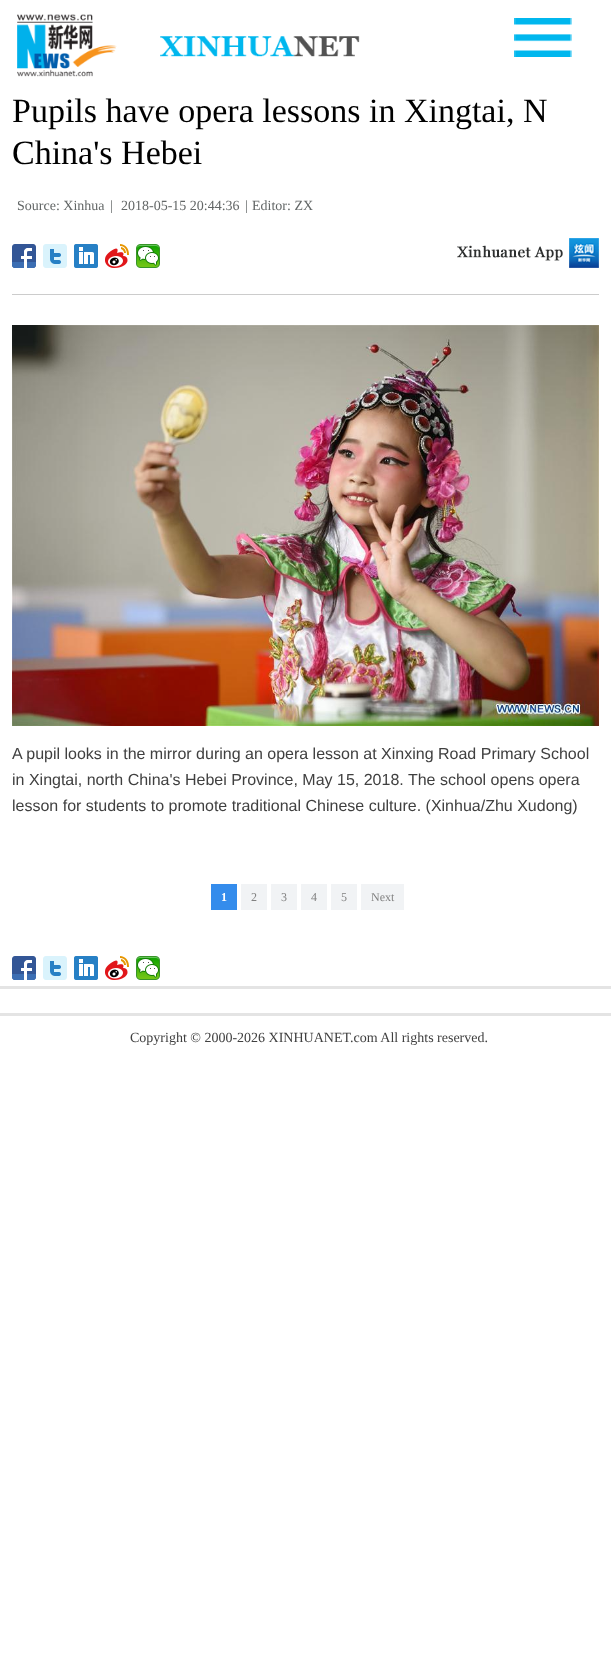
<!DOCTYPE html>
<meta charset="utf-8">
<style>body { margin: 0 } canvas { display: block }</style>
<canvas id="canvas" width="611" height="1671"></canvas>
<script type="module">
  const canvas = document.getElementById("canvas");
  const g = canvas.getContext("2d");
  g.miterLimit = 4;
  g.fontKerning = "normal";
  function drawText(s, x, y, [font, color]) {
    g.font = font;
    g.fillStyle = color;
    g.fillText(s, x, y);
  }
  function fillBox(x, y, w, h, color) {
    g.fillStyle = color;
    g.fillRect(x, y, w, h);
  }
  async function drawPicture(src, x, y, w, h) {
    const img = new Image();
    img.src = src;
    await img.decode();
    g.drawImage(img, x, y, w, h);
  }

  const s1 = ["34px Liberation Serif", "#000000"];
  const s2 = ["14px Liberation Serif", "#636767"];
  const s3 = ["16px Liberation Sans", "#404040"];
  const s4 = ["bold 12px Liberation Serif", "#FFFFFF"];
  const s5 = ["12px Liberation Serif", "#818181"];
  const s6 = ["14px Liberation Serif", "#404040"];

  fillBox(0, 0, 611, 1671, "#FFFFFF");
  await drawPicture("pic1.png", 17, 14, 343, 63);
  await drawPicture("pic2.png", 514, 18, 58, 39);
  drawText("Pupils have opera lessons in Xingtai, N", 12, 122, s1);
  drawText("China's Hebei", 12, 164, s1);
  drawText("Source: Xinhua", 17, 210, s2);
  drawText("|", 110, 210, s2);
  drawText("2018-05-15 20:44:36", 121, 210, s2);
  drawText("|", 245, 210, s2);
  drawText("Editor: ZX", 252, 210, s2);
  await drawPicture("pic3.png", 12, 244, 24, 24);
  await drawPicture("pic4.png", 43, 244, 24, 24);
  await drawPicture("pic5.png", 74, 244, 24, 24);
  await drawPicture("pic6.png", 105, 244, 24, 24);
  await drawPicture("pic7.png", 136, 244, 24, 24);
  await drawPicture("pic8.png", 457, 238, 142, 30);
  fillBox(12, 294, 587, 1, "#CCCCCC");
  await drawPicture("pic9.png", 12, 325, 587, 401);
  drawText("A pupil looks in the mirror during an opera lesson at Xinxing Road Primary School", 12, 759, s3);
  drawText("in Xingtai, north China's Hebei Province, May 15, 2018. The school opens opera", 12, 785, s3);
  drawText("lesson for students to promote traditional Chinese culture. (Xinhua/Zhu Xudong)", 12, 811, s3);
  fillBox(211, 884, 26, 26, "#348CEC");
  drawText("1", 221, 901, s4);
  fillBox(241, 884, 26, 26, "#F1F3F5");
  drawText("2", 251, 901, s5);
  fillBox(271, 884, 26, 26, "#F1F3F5");
  drawText("3", 281, 901, s5);
  fillBox(301, 884, 26, 26, "#F1F3F5");
  drawText("4", 311, 901, s5);
  fillBox(331, 884, 26, 26, "#F1F3F5");
  drawText("5", 341, 901, s5);
  fillBox(361, 884, 43, 26, "#F1F3F5");
  drawText("Next", 371, 901, s5);
  await drawPicture("pic3.png", 12, 956, 24, 24);
  await drawPicture("pic4.png", 43, 956, 24, 24);
  await drawPicture("pic5.png", 74, 956, 24, 24);
  await drawPicture("pic6.png", 105, 956, 24, 24);
  await drawPicture("pic7.png", 136, 956, 24, 24);
  fillBox(0, 986, 611, 3, "#E4E4E4");
  fillBox(0, 1013, 611, 3, "#E4E4E4");
  drawText("Copyright © 2000-2026 XINHUANET.com All rights reserved.", 130, 1042, s6);
</script>
